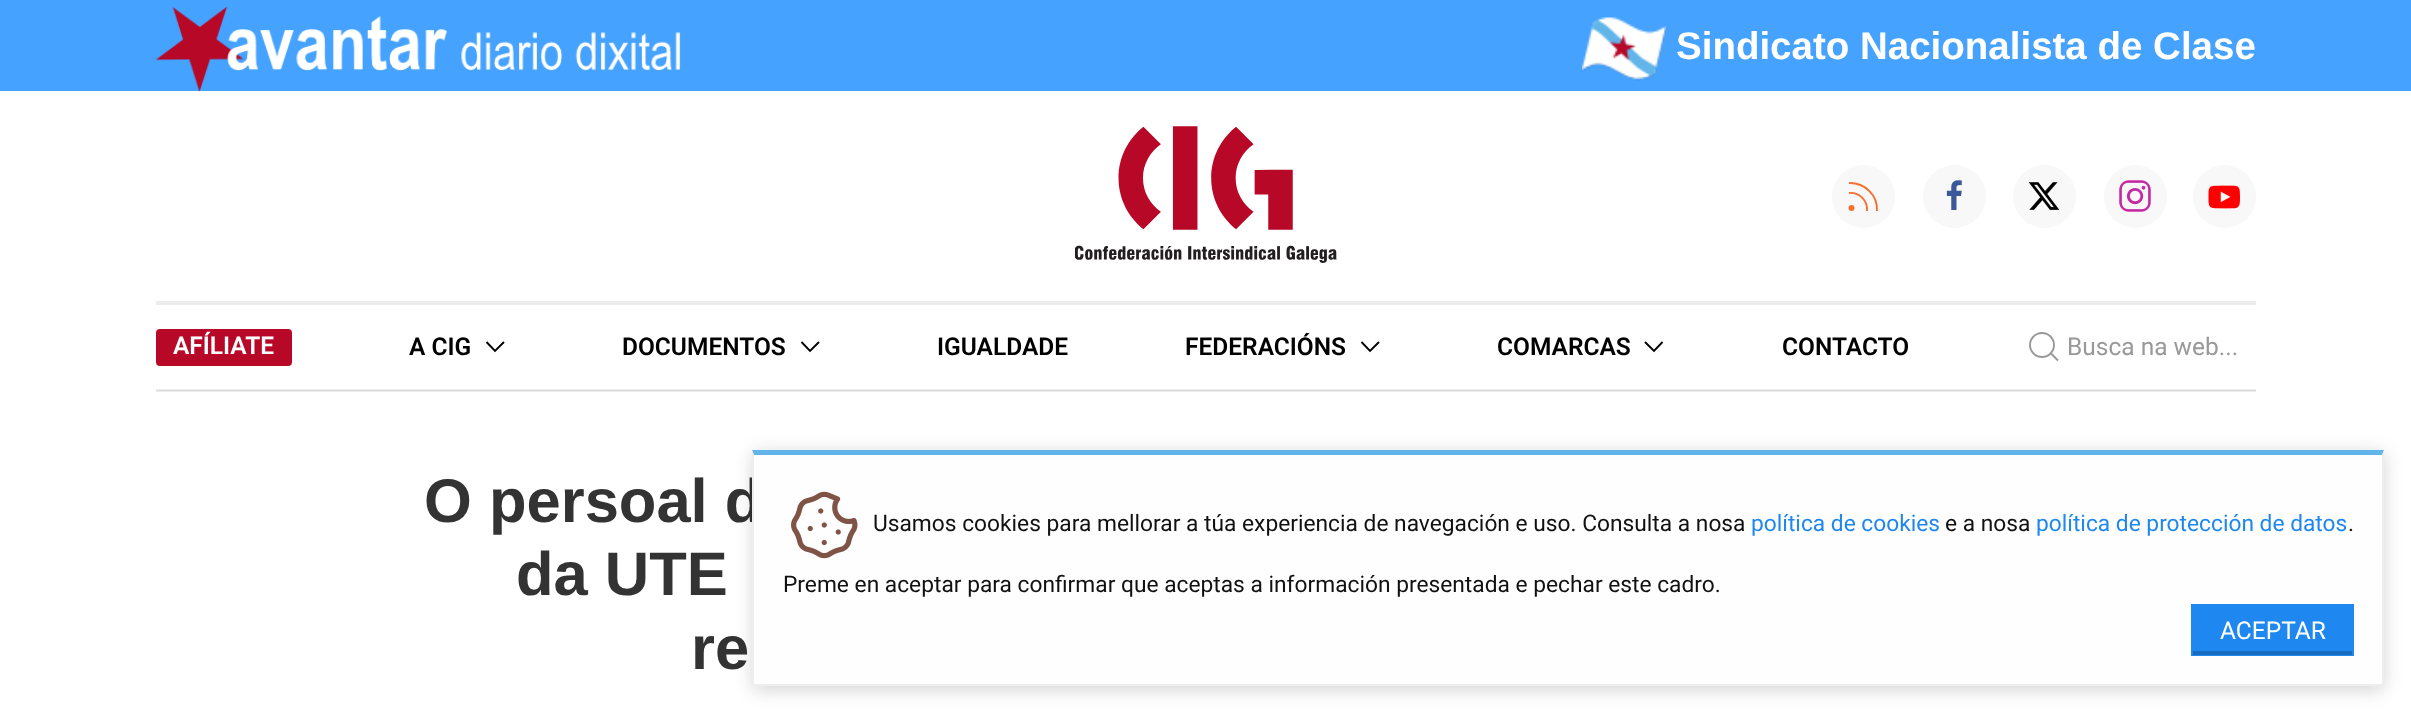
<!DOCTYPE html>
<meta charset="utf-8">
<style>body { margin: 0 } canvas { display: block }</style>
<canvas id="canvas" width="2411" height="713"></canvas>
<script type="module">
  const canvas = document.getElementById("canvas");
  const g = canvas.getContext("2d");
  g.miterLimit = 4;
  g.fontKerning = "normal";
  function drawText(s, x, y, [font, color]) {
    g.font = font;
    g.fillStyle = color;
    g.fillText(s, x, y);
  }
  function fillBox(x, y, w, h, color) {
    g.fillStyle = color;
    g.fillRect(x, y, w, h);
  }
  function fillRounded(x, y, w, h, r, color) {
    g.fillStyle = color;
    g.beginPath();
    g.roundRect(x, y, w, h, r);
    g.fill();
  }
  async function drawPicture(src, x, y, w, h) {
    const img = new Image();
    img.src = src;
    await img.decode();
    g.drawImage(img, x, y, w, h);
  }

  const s1 = ["bold 38.5px Liberation Sans", "#FFFFFF"];
  const s2 = ["600 24.5px Roboto", "#FFFFFF"];
  const s3 = ["600 24.5px Roboto", "#000000"];
  const s4 = ["24.5px Roboto", "#999999"];
  const s5 = ["bold 61.5px Liberation Sans", "#333333"];
  const s6 = ["22.75px Roboto", "#111111"];
  const s7 = ["22.75px Roboto", "#1E87F0"];
  const s8 = ["24.5px Roboto", "#FFFFFF"];

  fillBox(0, 0, 2411, 713, "#FFFFFF");
  fillBox(156, 389, 2100, 1, "#EDEDED");
  fillBox(0, 0, 2411, 91, "#45A2FF");
  await drawPicture("pic1.png", 155, 7, 526, 84);
  await drawPicture("pic2.png", 1582, 17, 84, 64);
  drawText("Sindicato Nacionalista de Clase", 1676, 59, s1);
  await drawPicture("pic3.png", 1075, 126, 262, 137);
  g.fillStyle = "#F8F8F8";
  g.beginPath();
  g.arc(1863.5, 196.5, 31.5, 0, Math.PI * 2);
  g.fill();
  g.fillStyle = "#F46F30";
  g.beginPath();
  g.arc(1851.5, 208, 3, 0, Math.PI * 2);
  g.fill();
  g.beginPath();
  g.moveTo(1849, 193);
  g.bezierCurveTo(1859, 192, 1868, 200.5, 1867, 211);
  g.moveTo(1849, 183);
  g.bezierCurveTo(1864.5, 182.5, 1878, 195, 1877, 211);
  g.strokeStyle = "#F46F30";
  g.lineWidth = 1.9;
  g.stroke();
  g.fillStyle = "#F8F8F8";
  g.beginPath();
  g.arc(1954.5, 196.5, 31.5, 0, Math.PI * 2);
  g.fill();
  await drawPicture("pic4.png", 1946, 180, 16, 30);
  g.beginPath();
  g.arc(2044.5, 196.5, 31.5, 0, Math.PI * 2);
  g.fill();
  await drawPicture("pic5.png", 2028, 182, 32, 28);
  g.beginPath();
  g.arc(2135.5, 196.5, 31.5, 0, Math.PI * 2);
  g.fill();
  await drawPicture("pic6.png", 2119, 180, 32, 32);
  g.beginPath();
  g.arc(2224.5, 196.5, 31.5, 0, Math.PI * 2);
  g.fill();
  await drawPicture("pic7.png", 2208, 185, 32, 24);
  fillBox(156, 301, 2100, 4, "#ECECEC");
  fillBox(156, 391, 2100, 1, "#ECECEC");
  fillBox(156, 390, 2100, 1, "#DBDBDB");
  fillRounded(156, 329, 136, 37, 4, "#B70827");
  drawText("AFÍLIATE", 173, 354, s2);
  drawText("A CIG", 409, 355, s3);
  g.beginPath();
  g.moveTo(486.5, 342);
  g.lineTo(495, 351);
  g.lineTo(504, 342);
  g.strokeStyle = "#000000";
  g.stroke();
  drawText("DOCUMENTOS", 622, 355, s3);
  g.beginPath();
  g.moveTo(801.5, 342);
  g.lineTo(810, 351);
  g.lineTo(819, 342);
  g.stroke();
  drawText("IGUALDADE", 937, 355, s3);
  drawText("FEDERACIÓNS", 1185, 355, s3);
  g.beginPath();
  g.moveTo(1361.5, 342);
  g.lineTo(1370, 351);
  g.lineTo(1379, 342);
  g.stroke();
  drawText("COMARCAS", 1497, 355, s3);
  g.beginPath();
  g.moveTo(1645, 342);
  g.lineTo(1654, 351);
  g.lineTo(1662.5, 342);
  g.stroke();
  drawText("CONTACTO", 1782, 355, s3);
  g.beginPath();
  g.arc(2042, 345, 12, 0, Math.PI * 2);
  g.strokeStyle = "#999999";
  g.stroke();
  g.beginPath();
  g.moveTo(2051, 353.5);
  g.lineTo(2058, 360.5);
  g.closePath();
  g.stroke();
  drawText("Busca na web...", 2067, 355, s4);
  drawText("O persoal d", 424, 522, s5);
  drawText("da UTE", 516, 595, s5);
  drawText("re", 691, 669, s5);
  g.fillStyle = "rgba(0, 0, 0, 0.17)";
  g.filter = "blur(9px)";
  g.beginPath();
  g.rect(753, 453, 1631, 237);
  g.fill();
  g.filter = "none";
  fillBox(754, 455, 1628, 229, "#FEFEFE");
  g.fillStyle = "#61B5E8";
  g.beginPath();
  g.moveTo(752, 450);
  g.lineTo(2384, 450);
  g.lineTo(2382, 455);
  g.lineTo(754, 455);
  g.closePath();
  g.fill();
  g.fillStyle = "#EEEEEE";
  g.beginPath();
  g.moveTo(2384, 450);
  g.lineTo(2384, 686);
  g.lineTo(2382, 684);
  g.lineTo(2382, 455);
  g.closePath();
  g.fill();
  fillBox(753, 684, 1631, 2, "#EEEEEE");
  g.beginPath();
  g.moveTo(752, 686);
  g.lineTo(752, 450);
  g.lineTo(754, 455);
  g.lineTo(754, 684);
  g.closePath();
  g.fill();
  await drawPicture("pic8.png", 791, 491, 67, 68);
  drawText("Usamos cookies para mellorar a túa experiencia de navegación e uso. Consulta a nosa", 873, 531, s6);
  drawText("política de cookies", 1751, 531, s7);
  drawText("e a nosa", 1945, 531, s6);
  drawText("política de protección de datos", 2036, 531, s7);
  drawText(".", 2348, 531, s6);
  drawText("Preme en aceptar para confirmar que aceptas a información presentada e pechar este cadro.", 783, 592, s6);
  fillBox(2191, 604, 163, 52, "#1E87F0");
  fillBox(2193, 651, 159, 4, "#186CC0");
  drawText("ACEPTAR", 2220, 639, s8);
</script>
